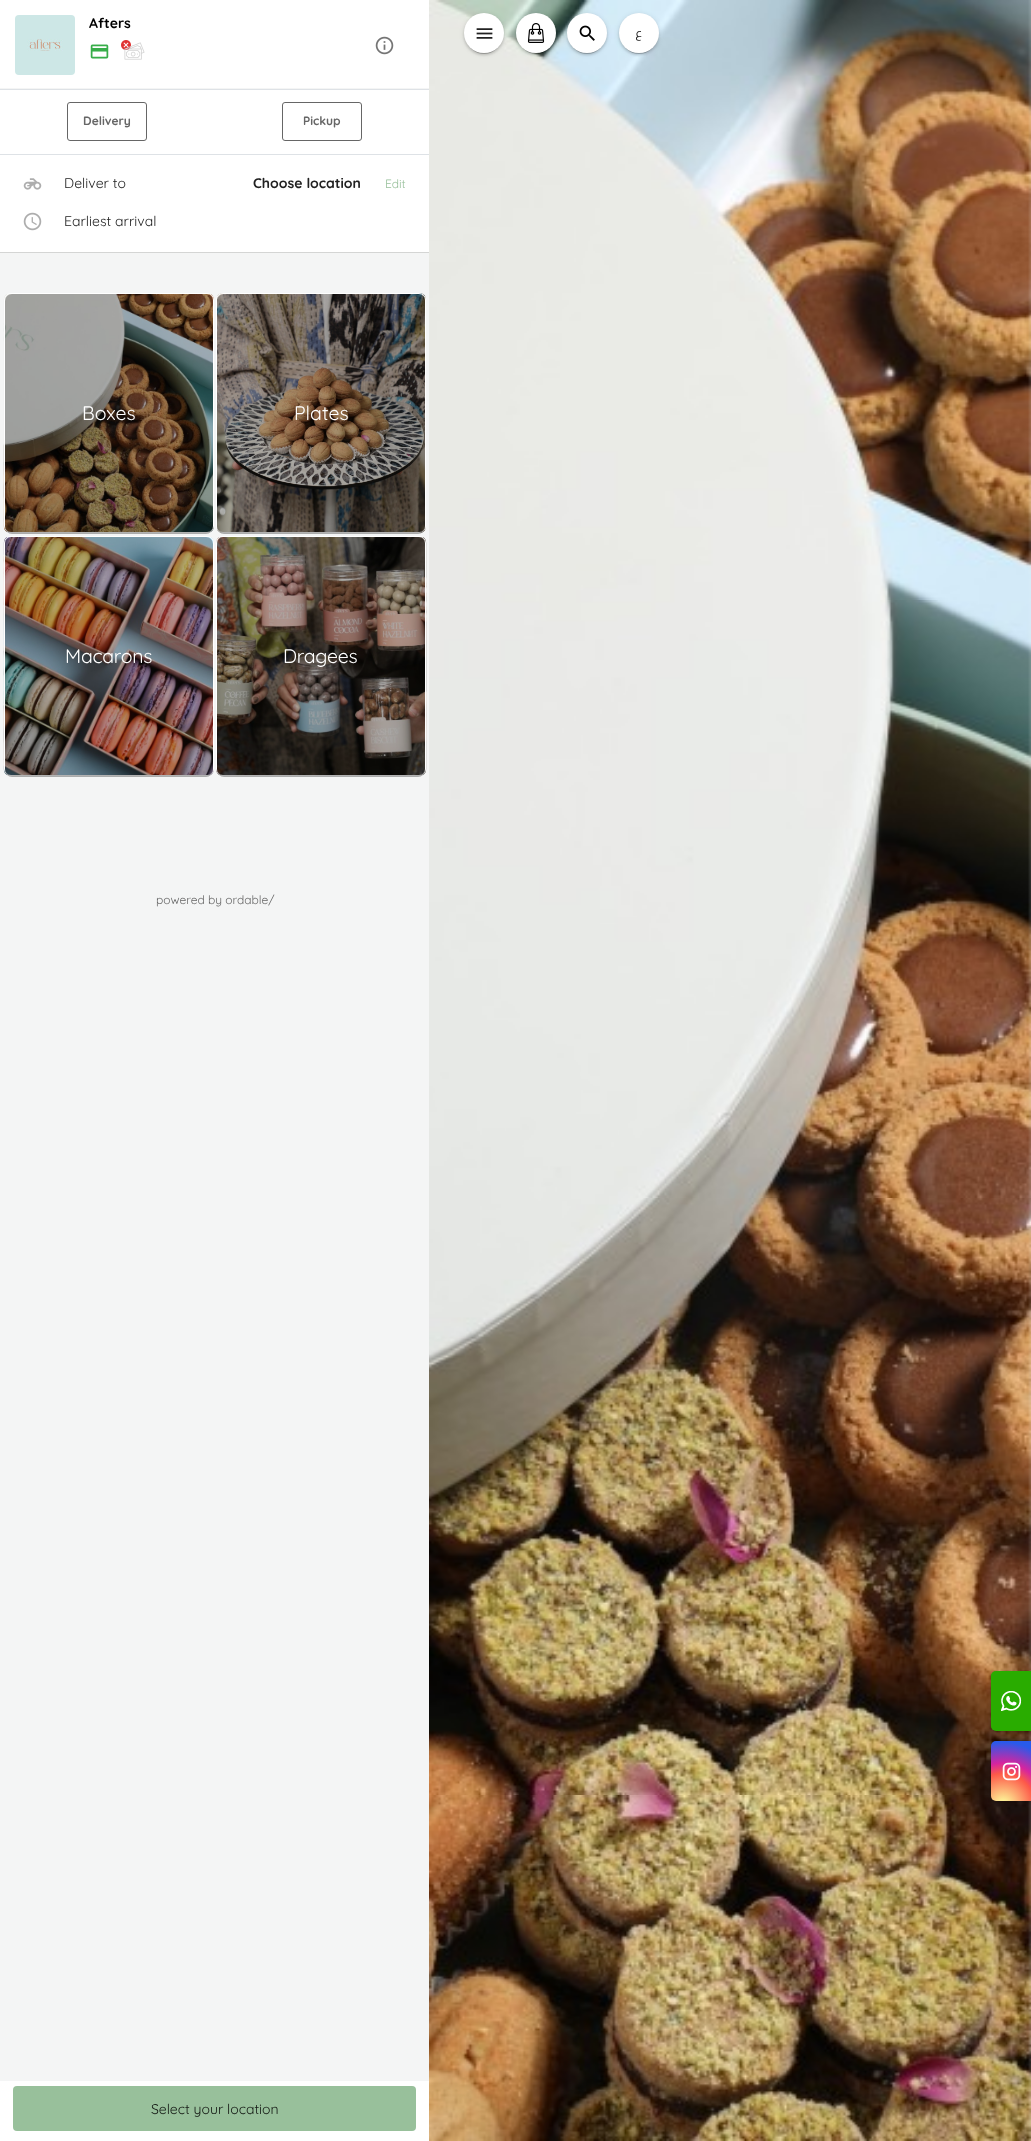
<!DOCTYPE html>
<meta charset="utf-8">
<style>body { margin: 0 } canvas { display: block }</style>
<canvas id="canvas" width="1031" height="2141"></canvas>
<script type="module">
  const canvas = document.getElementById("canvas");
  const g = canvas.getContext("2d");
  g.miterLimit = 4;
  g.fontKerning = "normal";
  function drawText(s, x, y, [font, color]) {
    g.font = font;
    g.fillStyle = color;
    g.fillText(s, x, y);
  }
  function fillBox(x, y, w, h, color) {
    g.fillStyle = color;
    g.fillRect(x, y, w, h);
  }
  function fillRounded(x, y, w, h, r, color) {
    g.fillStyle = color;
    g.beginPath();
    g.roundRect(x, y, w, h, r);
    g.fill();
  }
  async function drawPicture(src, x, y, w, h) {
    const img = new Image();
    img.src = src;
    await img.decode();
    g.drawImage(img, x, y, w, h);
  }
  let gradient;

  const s1 = ["300 14px 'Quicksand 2'", "#000000"];
  const s2 = ["300 12px 'Quicksand 2'", "#666666"];
  const s3 = ["300 14px Quicksand", "#212121"];
  const s4 = ["300 14px 'Quicksand 2'", "#212121"];
  const s5 = ["300 12px Quicksand", "#98C09B"];
  const s6 = ["300 19.5px Quicksand", "#FFFFFF"];
  const s7 = ["300 12px Quicksand", "#666666"];
  const s8 = ["300 14px Quicksand", "#141914"];
  const s9 = ["12px Cairo", "#212121"];

  fillBox(0, 0, 1031, 2141, "#F4F5F5");
  fillBox(0, 0, 429, 88, "#FFFFFF");
  await drawPicture("pic1.png", 15, 15, 60, 60);
  drawText("Afters", 89, 28, s1);
  await drawPicture("pic2.png", 90, 44, 19, 15);
  await drawPicture("pic3.png", 121, 40, 10, 10);
  await drawPicture("pic4.png", 124, 42, 21, 18);
  await drawPicture("pic5.png", 375, 36, 19, 19);
  fillBox(0, 90, 429, 162, "#FFFFFF");
  fillBox(0, 252, 430, 1, "#D4D5D4");
  fillBox(0, 89, 430, 1, "#DEE2E6");
  fillBox(0, 154, 430, 1, "#DEE2E6");
  g.beginPath();
  g.roundRect(67.5, 102.5, 79, 38, 2.5);
  g.strokeStyle = "#666666";
  g.stroke();
  drawText("Delivery", 83, 125, s2);
  g.beginPath();
  g.roundRect(282.5, 102.5, 79, 38, 2.5);
  g.stroke();
  drawText("Pickup", 303, 125, s2);
  await drawPicture("pic6.png", 23, 178, 19, 12);
  drawText("Deliver to", 64, 188, s3);
  drawText("Choose location", 253, 188, s4);
  drawText("Edit", 385, 188, s5);
  await drawPicture("pic7.png", 23, 212, 19, 19);
  drawText("Earliest arrival", 64, 226, s3);
  await drawPicture("pic8.png", 3, 294, 211, 238);
  g.beginPath();
  g.roundRect(4.5, 293.5, 209, 239, 6.5);
  g.strokeStyle = "#FFFFFF";
  g.stroke();
  fillRounded(5, 294, 208, 240, 7, "rgba(0, 0, 0, 0.3)");
  drawText("Boxes", 82, 420, s6);
  await drawPicture("pic9.png", 216, 293, 210, 240);
  g.beginPath();
  g.roundRect(216.5, 293.5, 209, 239, 6.5);
  g.stroke();
  fillRounded(217, 294, 208, 240, 7, "rgba(0, 0, 0, 0.3)");
  drawText("Plates", 294, 420, s6);
  await drawPicture("pic10.png", 3, 537, 211, 238);
  g.beginPath();
  g.roundRect(4.5, 536.5, 209, 239, 6.5);
  g.stroke();
  fillRounded(5, 537, 208, 240, 7, "rgba(0, 0, 0, 0.3)");
  g.letterSpacing = "-0.25px";
  drawText("Macarons", 65, 663, s6);
  await drawPicture("pic11.png", 216, 537, 211, 238);
  g.beginPath();
  g.roundRect(216.5, 536.5, 209, 239, 6.5);
  g.stroke();
  fillRounded(217, 537, 208, 240, 7, "rgba(0, 0, 0, 0.3)");
  drawText("Dragees", 283, 663, s6);
  g.letterSpacing = "0px";
  drawText("powered by ordable/", 156, 904, s7);
  fillBox(0, 2081, 429, 60, "#FFFFFF");
  fillRounded(13, 2086, 403, 45, 4, "#98C09B");
  drawText("Select your location", 151, 2114, s8);
  await drawPicture("pic12.png", 429, 0, 602, 2141);
  g.fillStyle = "rgba(0, 0, 0, 0.12)";
  g.filter = "blur(2.5px)";
  g.beginPath();
  g.roundRect(464, 14, 40, 40, 20);
  g.fill();
  g.filter = "none";
  g.fillStyle = "rgba(0, 0, 0, 0.14)";
  g.filter = "blur(1px)";
  g.beginPath();
  g.roundRect(464, 15, 40, 40, 20);
  g.fill();
  g.filter = "none";
  g.fillStyle = "rgba(0, 0, 0, 0.2)";
  g.filter = "blur(0.5px)";
  g.beginPath();
  g.roundRect(466, 18, 36, 36, 18);
  g.fill();
  g.filter = "none";
  g.fillStyle = "#FFFFFF";
  g.beginPath();
  g.arc(484, 33, 20, 0, Math.PI * 2);
  g.fill();
  await drawPicture("pic13.png", 476, 28, 17, 11);
  g.fillStyle = "rgba(0, 0, 0, 0.12)";
  g.filter = "blur(2.5px)";
  g.beginPath();
  g.roundRect(516, 14, 40, 40, 20);
  g.fill();
  g.filter = "none";
  g.fillStyle = "rgba(0, 0, 0, 0.14)";
  g.filter = "blur(1px)";
  g.beginPath();
  g.roundRect(516, 15, 40, 40, 20);
  g.fill();
  g.filter = "none";
  g.fillStyle = "rgba(0, 0, 0, 0.2)";
  g.filter = "blur(0.5px)";
  g.beginPath();
  g.roundRect(518, 18, 36, 36, 18);
  g.fill();
  g.filter = "none";
  g.fillStyle = "#FFFFFF";
  g.beginPath();
  g.arc(536, 33, 20, 0, Math.PI * 2);
  g.fill();
  await drawPicture("pic14.png", 527, 23, 18, 20);
  g.fillStyle = "rgba(0, 0, 0, 0.12)";
  g.filter = "blur(2.5px)";
  g.beginPath();
  g.roundRect(567, 14, 40, 40, 20);
  g.fill();
  g.filter = "none";
  g.fillStyle = "rgba(0, 0, 0, 0.14)";
  g.filter = "blur(1px)";
  g.beginPath();
  g.roundRect(567, 15, 40, 40, 20);
  g.fill();
  g.filter = "none";
  g.fillStyle = "rgba(0, 0, 0, 0.2)";
  g.filter = "blur(0.5px)";
  g.beginPath();
  g.roundRect(569, 18, 36, 36, 18);
  g.fill();
  g.filter = "none";
  g.fillStyle = "#FFFFFF";
  g.beginPath();
  g.arc(587, 33, 20, 0, Math.PI * 2);
  g.fill();
  await drawPicture("pic15.png", 579, 25, 16, 16);
  g.fillStyle = "rgba(0, 0, 0, 0.12)";
  g.filter = "blur(2.5px)";
  g.beginPath();
  g.roundRect(619, 14, 40, 40, 20);
  g.fill();
  g.filter = "none";
  g.fillStyle = "rgba(0, 0, 0, 0.14)";
  g.filter = "blur(1px)";
  g.beginPath();
  g.roundRect(619, 15, 40, 40, 20);
  g.fill();
  g.filter = "none";
  g.fillStyle = "rgba(0, 0, 0, 0.2)";
  g.filter = "blur(0.5px)";
  g.beginPath();
  g.roundRect(621, 18, 36, 36, 18);
  g.fill();
  g.filter = "none";
  g.fillStyle = "#FFFFFF";
  g.beginPath();
  g.arc(639, 33, 20, 0, Math.PI * 2);
  g.fill();
  g.direction = "rtl";
  drawText("ع", 642, 37, s9);
  g.fillStyle = "rgba(0, 0, 0, 0.15)";
  g.filter = "blur(1.5px)";
  g.beginPath();
  g.roundRect(990, 1671, 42, 62, 6);
  g.fill();
  g.filter = "none";
  g.fillStyle = "#29AC00";
  g.beginPath();
  g.roundRect(991, 1671, 40, 60, [5, 0, 0, 5]);
  g.fill();
  await drawPicture("pic16.png", 991, 1672, 31, 58);
  g.fillStyle = "rgba(0, 0, 0, 0.15)";
  g.filter = "blur(1.5px)";
  g.beginPath();
  g.roundRect(990, 1741, 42, 62, 6);
  g.fill();
  g.filter = "none";
  gradient = g.createRadialGradient(1003, 1805, 0, 1003, 1805, 70);
  gradient.addColorStop(0, "#FDF497");
  gradient.addColorStop(0.05, "#FDF497");
  gradient.addColorStop(0.45, "#FD5949");
  gradient.addColorStop(0.6, "#D6249F");
  gradient.addColorStop(0.9, "#285AEB");
  g.fillStyle = gradient;
  g.beginPath();
  g.roundRect(991, 1741, 40, 60, [5, 0, 0, 5]);
  g.fill();
  await drawPicture("pic17.png", 1002, 1762, 19, 19);
</script>
